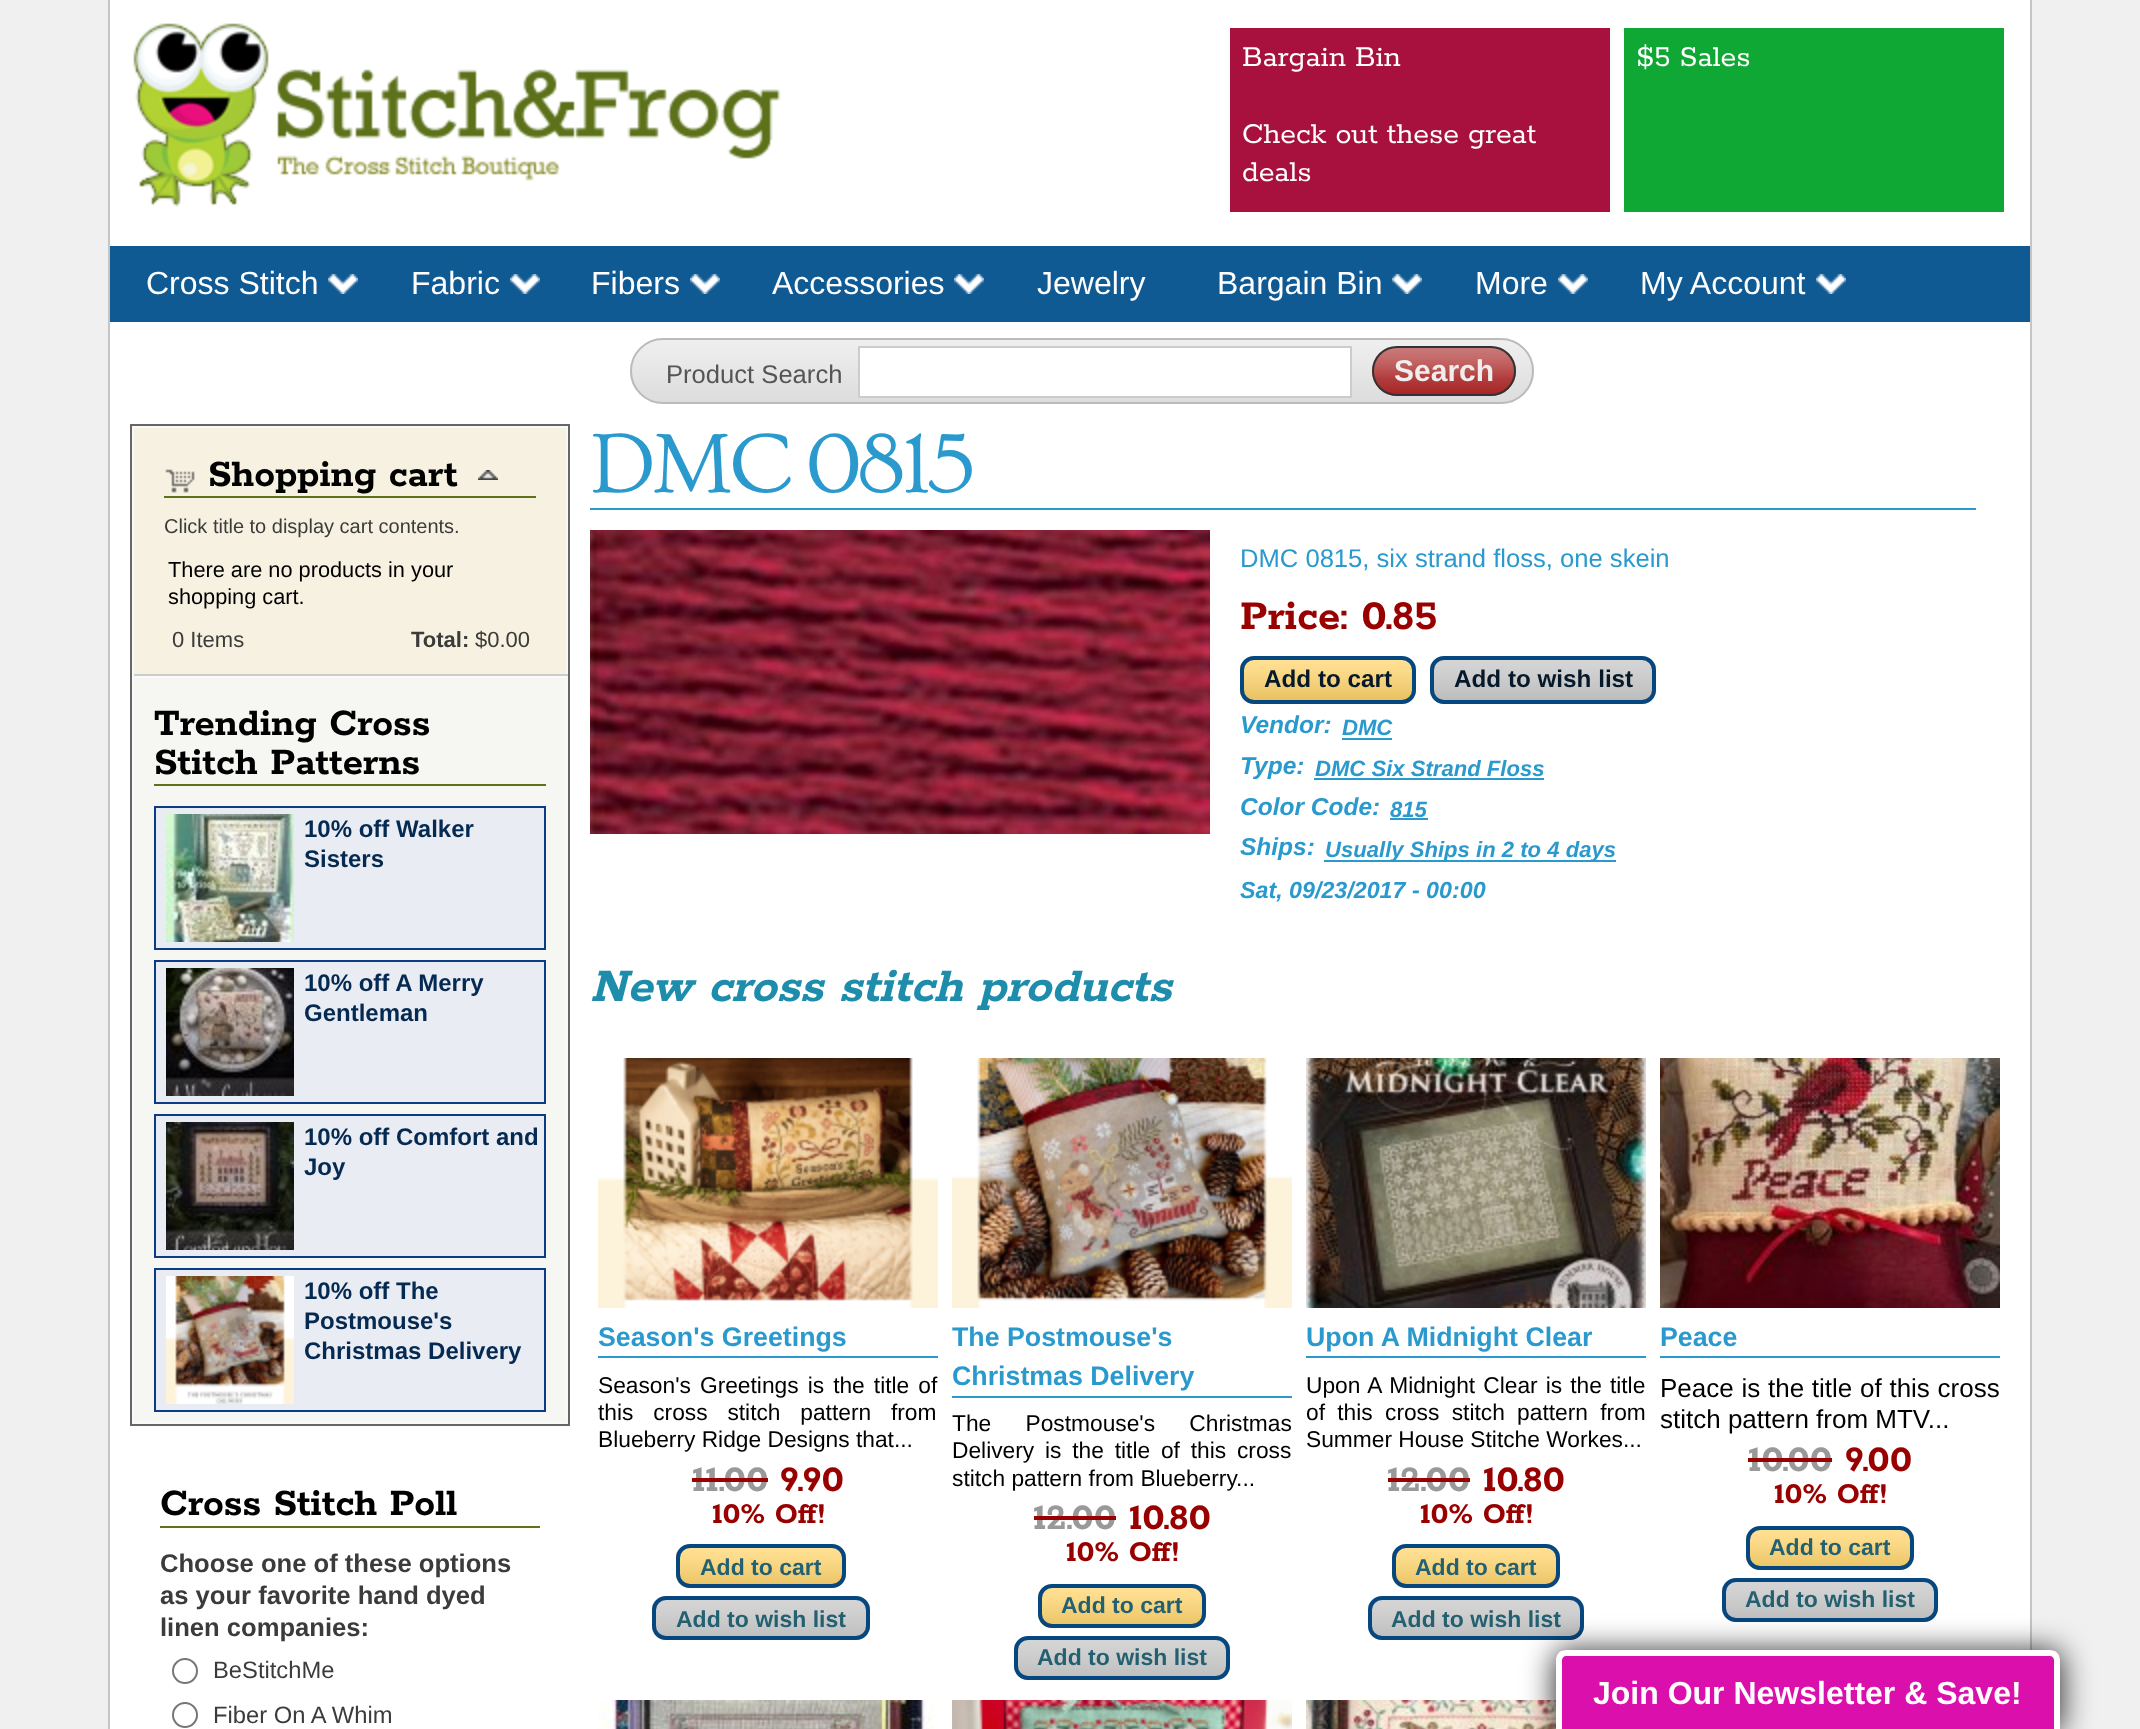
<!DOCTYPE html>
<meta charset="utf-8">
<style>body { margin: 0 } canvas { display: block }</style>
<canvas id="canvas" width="2140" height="1729"></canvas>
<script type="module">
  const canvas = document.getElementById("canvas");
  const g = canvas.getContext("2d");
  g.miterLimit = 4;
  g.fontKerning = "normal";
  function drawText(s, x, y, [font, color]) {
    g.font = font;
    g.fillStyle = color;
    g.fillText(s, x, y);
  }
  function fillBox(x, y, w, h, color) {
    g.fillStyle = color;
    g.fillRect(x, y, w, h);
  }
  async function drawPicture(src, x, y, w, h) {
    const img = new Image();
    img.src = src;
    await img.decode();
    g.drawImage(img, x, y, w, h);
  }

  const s1 = ["32px Rokkitt", "#FFFEFF"];
  const s2 = ["32px Liberation Sans", "#FFFEFF"];
  const s3 = ["25.6px Liberation Sans", "#555555"];
  const s4 = ["bold 30px Liberation Sans", "#EEEEEE"];
  const s5 = ["bold 41.5px Rokkitt", "#000000"];
  const s6 = ["20px Liberation Sans", "#3B3B3B"];
  const s7 = ["21.75px Liberation Sans", "#000000"];
  const s8 = ["22px Liberation Sans", "#3B3B3B"];
  const s9 = ["bold 22px Liberation Sans", "#3B3B3B"];
  const s10 = ["bold 24px Liberation Sans", "#052A52"];
  const s11 = ["bold 25.6px Liberation Sans", "#3B3B3B"];
  const s12 = ["23.75px Liberation Sans", "#3B3B3B"];
  const s13 = ["88px Ovo", "#2A99CD"];
  const s14 = ["25.6px Liberation Sans", "#2A99CD"];
  const s15 = ["bold 45.5px Rokkitt", "#990000"];
  const s16 = ["bold 24.25px Liberation Sans", "#05192A"];
  const s17 = ["italic bold 24.5px Liberation Sans", "#2A99CD"];
  const s18 = ["italic bold 22.1px Liberation Sans", "#2A99CD"];
  const s19 = ["italic bold 23.25px Liberation Sans", "#2A99CD"];
  const s20 = ["italic bold 52.1px Rokkitt", "#1E8CAB"];
  const s21 = ["bold 26.75px Liberation Sans", "#2A99CD"];
  const s22 = ["22.75px Liberation Sans", "#000000"];
  const s23 = ["bold 40px Rokkitt", "#999999"];
  const s24 = ["bold 40px Rokkitt", "#990000"];
  const s25 = ["bold 32px Rokkitt", "#990000"];
  const s26 = ["bold 23px Liberation Sans", "#236071"];
  const s27 = ["26px Liberation Sans", "#000000"];
  const s28 = ["bold 32px Liberation Sans", "#FFFEFF"];

  fillBox(0, 0, 2140, 1729, "#F0F0F0");
  fillBox(110, 0, 1920, 1729, "#FFFFFF");
  fillBox(2030, 0, 2, 1650, "#C5C5C5");
  fillBox(108, 0, 2, 1729, "#C5C5C5");
  await drawPicture("pic1.png", 133, 23, 648, 184);
  fillBox(1230, 28, 380, 184, "#A8103D");
  drawText("Bargain Bin", 1242, 66, s1);
  drawText("Check out these great", 1242, 143, s1);
  drawText("deals", 1242, 181, s1);
  fillBox(1624, 28, 380, 184, "#10A834");
  drawText("$5 Sales", 1636, 66, s1);
  fillBox(110, 246, 1920, 76, "#105A94");
  await drawPicture("pic2.png", 328, 274, 30, 20);
  drawText("Cross Stitch", 146, 294, s2);
  await drawPicture("pic2.png", 510, 274, 30, 20);
  drawText("Fabric", 411, 294, s2);
  await drawPicture("pic2.png", 690, 274, 30, 20);
  drawText("Fibers", 591, 294, s2);
  await drawPicture("pic2.png", 954, 274, 30, 20);
  drawText("Accessories", 772, 294, s2);
  drawText("Jewelry", 1037, 294, s2);
  await drawPicture("pic2.png", 1392, 274, 30, 20);
  drawText("Bargain Bin", 1217, 294, s2);
  await drawPicture("pic2.png", 1558, 274, 30, 20);
  drawText("More", 1475, 294, s2);
  await drawPicture("pic2.png", 1816, 274, 30, 20);
  drawText("My Account", 1640, 294, s2);
  await drawPicture("pic3.png", 630, 340, 904, 64);
  g.beginPath();
  g.roundRect(631, 339, 902, 64, 32);
  g.strokeStyle = "#BBBBBB";
  g.lineWidth = 2;
  g.stroke();
  drawText("Product Search", 666, 383, s3);
  g.fillStyle = "#FFFFFF";
  g.beginPath();
  g.rect(859, 347, 492, 50);
  g.fill();
  g.strokeStyle = "#CCCCCC";
  g.stroke();
  await drawPicture("pic4.png", 1372, 348, 144, 48);
  g.beginPath();
  g.roundRect(1373, 347, 142, 48, 24);
  g.strokeStyle = "#333333";
  g.stroke();
  drawText("Search", 1394, 381, s4);
  fillBox(134, 678, 432, 744, "#F6F6F2");
  g.strokeStyle = "#666666";
  g.strokeRect(131, 425, 438, 1000);
  fillBox(134, 428, 432, 246, "#F6F1E0");
  fillBox(132, 426, 436, 2, "#F9F9F9");
  fillBox(566, 426, 2, 250, "#F9F9F9");
  fillBox(132, 674, 436, 2, "#CCCCCC");
  fillBox(132, 426, 2, 250, "#F9F9F9");
  fillBox(164, 496, 372, 2, "#5D721A");
  await drawPicture("pic5.png", 165, 469, 30, 24);
  drawText("Shopping cart", 208, 486, s5);
  await drawPicture("pic6.png", 478, 470, 20, 10);
  drawText("Click title to display cart contents.", 164, 533, s6);
  drawText("There are no products in your", 168, 577, s7);
  drawText("shopping cart.", 168, 604, s7);
  drawText("0 Items", 172, 647, s8);
  drawText("Total:", 411, 647, s9);
  drawText("$0.00", 475, 647, s8);
  g.strokeStyle = "#F9F9F9";
  g.strokeRect(133, 677, 434, 746);
  fillBox(154, 784, 392, 2, "#5D721A");
  drawText("Trending Cross", 154, 735, s5);
  drawText("Stitch Patterns", 154, 774, s5);
  g.fillStyle = "#EAECF3";
  g.beginPath();
  g.rect(155, 807, 390, 142);
  g.fill();
  g.strokeStyle = "#0B3C85";
  g.stroke();
  await drawPicture("pic7.png", 166, 814, 128, 128);
  drawText("10% off Walker", 304, 837, s10);
  drawText("Sisters", 304, 867, s10);
  g.fillStyle = "#EAECF3";
  g.beginPath();
  g.rect(155, 961, 390, 142);
  g.fill();
  g.stroke();
  await drawPicture("pic8.png", 166, 968, 128, 128);
  drawText("10% off A Merry", 304, 991, s10);
  drawText("Gentleman", 304, 1021, s10);
  g.fillStyle = "#EAECF3";
  g.beginPath();
  g.rect(155, 1115, 390, 142);
  g.fill();
  g.stroke();
  await drawPicture("pic9.png", 166, 1122, 128, 128);
  drawText("10% off Comfort and", 304, 1145, s10);
  drawText("Joy", 304, 1175, s10);
  g.fillStyle = "#EAECF3";
  g.beginPath();
  g.rect(155, 1269, 390, 142);
  g.fill();
  g.stroke();
  await drawPicture("pic10.png", 166, 1276, 128, 128);
  drawText("10% off The", 304, 1299, s10);
  drawText("Postmouse's", 304, 1329, s10);
  drawText("Christmas Delivery", 304, 1359, s10);
  fillBox(160, 1526, 380, 2, "#5D721A");
  drawText("Cross Stitch Poll", 160, 1515, s5);
  drawText("Choose one of these options", 160, 1572, s11);
  drawText("as your favorite hand dyed", 160, 1604, s11);
  drawText("linen companies:", 160, 1636, s11);
  g.beginPath();
  g.arc(185, 1671, 12, 0, Math.PI * 2);
  g.strokeStyle = "#767676";
  g.stroke();
  drawText("BeStitchMe", 213, 1678, s12);
  g.beginPath();
  g.arc(185, 1715, 12, 0, Math.PI * 2);
  g.stroke();
  drawText("Fiber On A Whim", 213, 1723, s12);
  fillBox(590, 508, 1386, 2, "#2A99CD");
  g.letterSpacing = "-4.5px";
  drawText("DMC 0815", 590, 492, s13);
  await drawPicture("pic11.png", 590, 530, 620, 304);
  g.letterSpacing = "0px";
  drawText("DMC 0815, six strand floss, one skein", 1240, 567, s14);
  drawText("Price: 0.85", 1240, 629, s15);
  await drawPicture("pic12.png", 1240, 660, 176, 44);
  g.beginPath();
  g.roundRect(1242, 658, 172, 44, 12);
  g.strokeStyle = "#064780";
  g.lineWidth = 4;
  g.stroke();
  drawText("Add to cart", 1264, 687, s16);
  await drawPicture("pic13.png", 1430, 660, 226, 44);
  g.beginPath();
  g.roundRect(1432, 658, 222, 44, 12);
  g.stroke();
  drawText("Add to wish list", 1454, 687, s16);
  drawText("Vendor:", 1240, 733, s17);
  drawText("DMC", 1342, 735, s18);
  fillBox(1342, 738, 50, 2, "#2A99CD");
  drawText("Type:", 1240, 774, s17);
  drawText("DMC Six Strand Floss", 1315, 776, s18);
  fillBox(1314, 778, 230, 2, "#2A99CD");
  drawText("Color Code:", 1240, 815, s17);
  drawText("815", 1390, 817, s18);
  fillBox(1390, 818, 38, 2, "#2A99CD");
  drawText("Ships:", 1240, 855, s17);
  fillBox(1324, 860, 292, 2, "#2A99CD");
  drawText("Usually Ships in 2 to 4 days", 1325, 857, s18);
  drawText("Sat, 09/23/2017 - 00:00", 1240, 898, s19);
  drawText("New cross stitch products", 590, 1001, s20);
  await drawPicture("pic14.png", 598, 1058, 340, 250);
  fillBox(598, 1356, 340, 2, "#2A99CD");
  drawText("Season's Greetings", 598, 1346, s21);
  g.wordSpacing = "2.75px";
  drawText("Season's Greetings is the title of", 598, 1393, s22);
  g.wordSpacing = "13.5px";
  drawText("this cross stitch pattern from", 598, 1420, s22);
  g.wordSpacing = "0px";
  drawText("Blueberry Ridge Designs that...", 598, 1447, s22);
  drawText("11.00", 692, 1491, s23);
  fillBox(692, 1478, 76, 4, "#990000");
  drawText("9.90", 780, 1491, s24);
  drawText("10% Off!", 712, 1523, s25);
  await drawPicture("pic15.png", 676, 1548, 170, 40);
  g.beginPath();
  g.roundRect(678, 1546, 166, 40, 12);
  g.stroke();
  drawText("Add to cart", 700, 1575, s26);
  await drawPicture("pic16.png", 652, 1600, 218, 40);
  g.beginPath();
  g.roundRect(654, 1598, 214, 40, 12);
  g.stroke();
  drawText("Add to wish list", 676, 1627, s26);
  await drawPicture("pic17.png", 952, 1058, 340, 250);
  fillBox(952, 1396, 340, 2, "#2A99CD");
  drawText("The Postmouse's", 952, 1346, s21);
  drawText("Christmas Delivery", 952, 1385, s21);
  g.wordSpacing = "28px";
  drawText("The Postmouse's Christmas", 952, 1431, s22);
  g.wordSpacing = "4.5px";
  drawText("Delivery is the title of this cross", 952, 1458, s22);
  g.wordSpacing = "0px";
  drawText("stitch pattern from Blueberry...", 952, 1486, s22);
  drawText("12.00", 1033, 1529, s23);
  fillBox(1034, 1516, 82, 4, "#990000");
  drawText("10.80", 1129, 1529, s24);
  drawText("10% Off!", 1066, 1561, s25);
  await drawPicture("pic18.png", 1038, 1588, 168, 40);
  g.beginPath();
  g.roundRect(1040, 1586, 164, 40, 12);
  g.stroke();
  drawText("Add to cart", 1061, 1613, s26);
  await drawPicture("pic19.png", 1014, 1640, 216, 40);
  g.beginPath();
  g.roundRect(1016, 1638, 212, 40, 12);
  g.stroke();
  drawText("Add to wish list", 1037, 1665, s26);
  await drawPicture("pic20.png", 1306, 1058, 340, 250);
  fillBox(1306, 1356, 340, 2, "#2A99CD");
  drawText("Upon A Midnight Clear", 1306, 1346, s21);
  g.wordSpacing = "1.75px";
  drawText("Upon A Midnight Clear is the title", 1306, 1393, s22);
  g.wordSpacing = "6px";
  drawText("of this cross stitch pattern from", 1306, 1420, s22);
  g.wordSpacing = "0px";
  drawText("Summer House Stitche Workes...", 1306, 1447, s22);
  drawText("12.00", 1387, 1491, s23);
  fillBox(1388, 1478, 82, 4, "#990000");
  drawText("10.80", 1483, 1491, s24);
  drawText("10% Off!", 1420, 1523, s25);
  await drawPicture("pic18.png", 1392, 1548, 168, 40);
  g.beginPath();
  g.roundRect(1394, 1546, 164, 40, 12);
  g.stroke();
  drawText("Add to cart", 1415, 1575, s26);
  await drawPicture("pic21.png", 1368, 1600, 216, 40);
  g.beginPath();
  g.roundRect(1370, 1598, 212, 40, 12);
  g.stroke();
  drawText("Add to wish list", 1391, 1627, s26);
  await drawPicture("pic22.png", 1660, 1058, 340, 250);
  fillBox(1660, 1356, 340, 2, "#2A99CD");
  drawText("Peace", 1660, 1346, s21);
  g.wordSpacing = "0.5px";
  drawText("Peace is the title of this cross", 1660, 1397, s27);
  g.wordSpacing = "0px";
  drawText("stitch pattern from MTV...", 1660, 1428, s27);
  drawText("10.00", 1748, 1471, s23);
  fillBox(1748, 1458, 84, 4, "#990000");
  drawText("9.00", 1845, 1471, s24);
  drawText("10% Off!", 1774, 1503, s25);
  await drawPicture("pic18.png", 1746, 1530, 168, 40);
  g.beginPath();
  g.roundRect(1748, 1528, 164, 40, 12);
  g.stroke();
  drawText("Add to cart", 1769, 1555, s26);
  await drawPicture("pic21.png", 1722, 1582, 216, 40);
  g.beginPath();
  g.roundRect(1724, 1580, 212, 40, 12);
  g.stroke();
  drawText("Add to wish list", 1745, 1607, s26);
  await drawPicture("pic23.png", 598, 1700, 336, 29);
  await drawPicture("pic24.png", 952, 1700, 340, 29);
  await drawPicture("pic25.png", 1306, 1700, 250, 29);
  g.fillStyle = "rgba(0, 0, 0, 0.8)";
  g.filter = "blur(15px)";
  g.beginPath();
  g.roundRect(1554, 1650, 508, 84, 12);
  g.fill();
  g.filter = "none";
  g.fillStyle = "#DB0FAC";
  g.beginPath();
  g.moveTo(1566, 1650);
  g.lineTo(2050, 1650);
  g.bezierCurveTo(2055.5, 1650, 2060, 1654.5, 2060, 1660);
  g.lineTo(2060, 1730);
  g.lineTo(1556, 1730);
  g.lineTo(1556, 1660);
  g.bezierCurveTo(1556, 1654.5, 1560.5, 1650, 1566, 1650);
  g.closePath();
  g.fill();
  g.fillStyle = "#FFFFFF";
  g.beginPath();
  g.moveTo(1566, 1650);
  g.lineTo(2050, 1650);
  g.bezierCurveTo(2056, 1650, 2060, 1654, 2060, 1660);
  g.lineTo(2060, 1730);
  g.lineTo(1556, 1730);
  g.lineTo(1556, 1660);
  g.bezierCurveTo(1556, 1654, 1560, 1650, 1566, 1650);
  g.closePath();
  g.moveTo(1566, 1656);
  g.lineTo(2050, 1656);
  g.bezierCurveTo(2052, 1656, 2054, 1658, 2054, 1660);
  g.lineTo(2054, 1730);
  g.lineTo(1562, 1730);
  g.lineTo(1562, 1660);
  g.bezierCurveTo(1562, 1658, 1564, 1656, 1566, 1656);
  g.closePath();
  g.fill("evenodd");
  drawText("Join Our Newsletter & Save!", 1593, 1704, s28);
</script>
